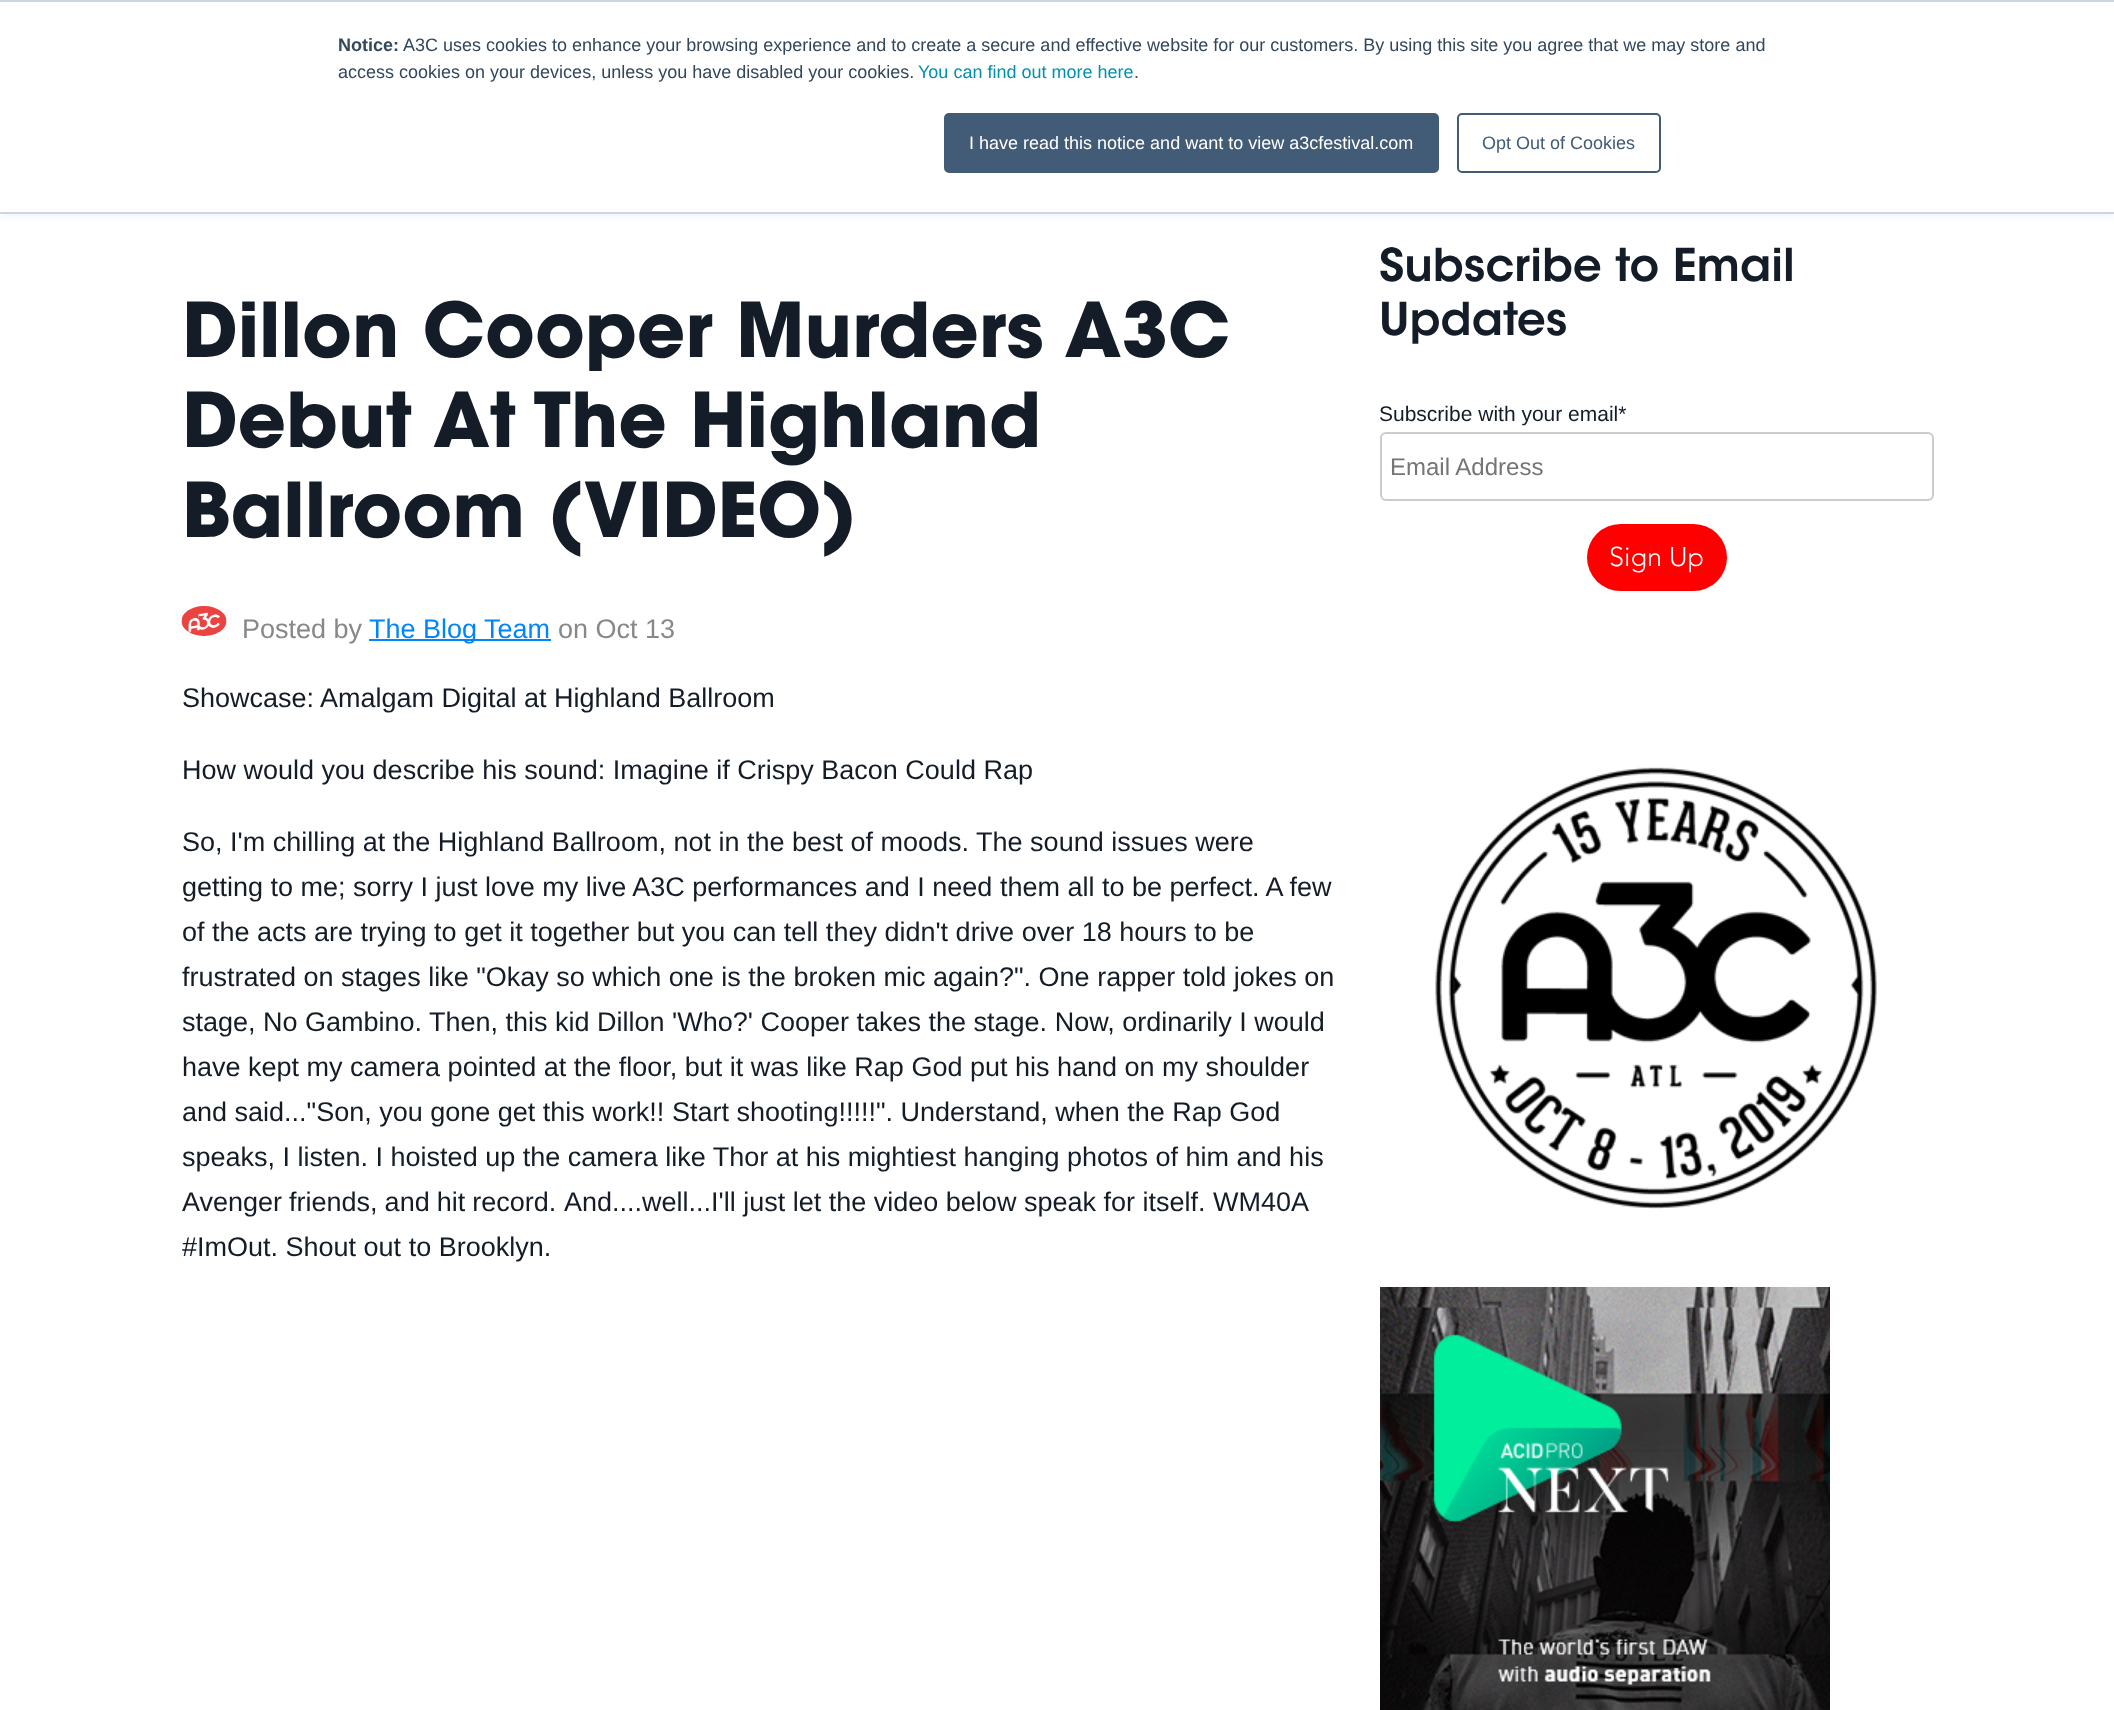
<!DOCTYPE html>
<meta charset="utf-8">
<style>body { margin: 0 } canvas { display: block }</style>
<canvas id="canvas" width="2114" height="1710"></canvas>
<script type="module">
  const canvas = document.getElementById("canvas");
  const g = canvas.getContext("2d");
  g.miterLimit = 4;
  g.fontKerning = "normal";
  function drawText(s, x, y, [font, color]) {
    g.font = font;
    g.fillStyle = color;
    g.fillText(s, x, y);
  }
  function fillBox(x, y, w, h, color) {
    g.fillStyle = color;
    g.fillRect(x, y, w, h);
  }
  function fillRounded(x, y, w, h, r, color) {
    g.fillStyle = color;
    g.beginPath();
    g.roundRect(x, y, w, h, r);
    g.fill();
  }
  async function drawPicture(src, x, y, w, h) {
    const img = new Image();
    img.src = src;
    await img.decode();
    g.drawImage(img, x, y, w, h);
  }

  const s1 = ["bold 18px Liberation Sans", "#33475B"];
  const s2 = ["18px Liberation Sans", "#33475B"];
  const s3 = ["18px Liberation Sans", "#0091AE"];
  const s4 = ["18px Liberation Sans", "#FFFFFF"];
  const s5 = ["18px Liberation Sans", "#425B76"];
  const s6 = ["bold 75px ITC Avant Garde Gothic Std", "#141C27"];
  const s7 = ["27px Liberation Sans", "#888888"];
  const s8 = ["27px Liberation Sans", "#0085FF"];
  const s9 = ["27px Liberation Sans", "#141C27"];
  const s10 = ["600 45px ITC Avant Garde Gothic Std", "#141C27"];
  const s11 = ["21px Liberation Sans", "#141C27"];
  const s12 = ["24px Liberation Sans", "#757575"];
  const s13 = ["300 27px Avenir", "#FFFFFF"];

  fillBox(0, 0, 2114, 1710, "#FFFFFF");
  g.fillStyle = "#EAF0F6";
  g.filter = "blur(4px)";
  g.beginPath();
  g.rect(0, 2, 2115, 213);
  g.fill();
  g.filter = "none";
  fillBox(0, 2, 2114, 210, "#FFFFFF");
  fillBox(0, 0, 2114, 2, "#CBD6E2");
  fillBox(0, 212, 2114, 2, "#CBD6E2");
  drawText("Notice:", 338, 51, s1);
  drawText("A3C uses cookies to enhance your browsing experience and to create a secure and effective website for our customers. By using this site you agree that we may store and", 403, 51, s2);
  drawText("access cookies on your devices, unless you have disabled your cookies.", 338, 78, s2);
  drawText("You can find out more here", 918, 78, s3);
  drawText(".", 1134, 78, s2);
  g.fillStyle = "#425B76";
  g.beginPath();
  g.roundRect(945, 114, 493, 58, 4);
  g.fill();
  g.strokeStyle = "#425B76";
  g.lineWidth = 2;
  g.stroke();
  drawText("I have read this notice and want to view a3cfestival.com", 969, 149, s4);
  g.beginPath();
  g.roundRect(1458, 114, 202, 58, 4);
  g.stroke();
  drawText("Opt Out of Cookies", 1482, 149, s5);
  drawText("Dillon Cooper Murders A3C", 182, 357, s6);
  drawText("Debut At The Highland", 182, 447, s6);
  drawText("Ballroom (VIDEO)", 182, 537, s6);
  await drawPicture("pic1.png", 181, 606, 46, 30);
  drawText("Posted by", 242, 638, s7);
  fillBox(369, 639, 182, 2, "#0085FF");
  drawText("The Blog Team", 369, 638, s8);
  drawText("on Oct 13", 558, 638, s7);
  drawText("Showcase:", 182, 707, s9);
  drawText("Amalgam Digital at Highland Ballroom", 320, 707, s9);
  drawText("How would you describe his sound: Imagine if Crispy Bacon Could Rap", 182, 779, s9);
  drawText("So, I'm chilling at the Highland Ballroom, not in the best of moods. The sound issues were", 182, 851, s9);
  drawText("getting to me; sorry I just love my live A3C performances and I need them all to be perfect. A few", 182, 896, s9);
  drawText("of the acts are trying to get it together but you can tell they didn't drive over 18 hours to be", 182, 941, s9);
  drawText("frustrated on stages like \"Okay so which one is the broken mic again?\". One rapper told jokes on", 182, 986, s9);
  drawText("stage, No Gambino.", 182, 1031, s9);
  drawText("Then, this kid Dillon 'Who?' Cooper takes the stage. Now, ordinarily I would", 429, 1031, s9);
  drawText("have kept my camera pointed at the floor, but it was like Rap God put his hand on my shoulder", 182, 1076, s9);
  drawText("and said...\"Son, you gone get this work!! Start shooting!!!!!\". Understand, when the Rap God", 182, 1121, s9);
  drawText("speaks, I listen. I hoisted up the camera like Thor at his mightiest hanging photos of him and his", 182, 1166, s9);
  g.wordSpacing = "-0.5px";
  drawText("Avenger friends, and hit record.", 182, 1211, s9);
  g.wordSpacing = "0px";
  drawText("And....well...I'll just let the video below speak for itself. WM40A", 564, 1211, s9);
  drawText("#ImOut. Shout out to Brooklyn.", 182, 1256, s9);
  drawText("Subscribe to Email", 1379, 281, s10);
  drawText("Updates", 1379, 335, s10);
  drawText("Subscribe with your email*", 1379, 421, s11);
  g.beginPath();
  g.roundRect(1381, 433, 552, 67, 5);
  g.strokeStyle = "#CCCCCC";
  g.stroke();
  drawText("Email Address", 1390, 475, s12);
  fillRounded(1587, 524, 140, 67, 33.5, "#FF0001");
  drawText("Sign Up", 1609, 566, s13);
  await drawPicture("pic2.png", 1435, 767, 442, 442);
  await drawPicture("pic3.png", 1380, 1287, 450, 423);
</script>
